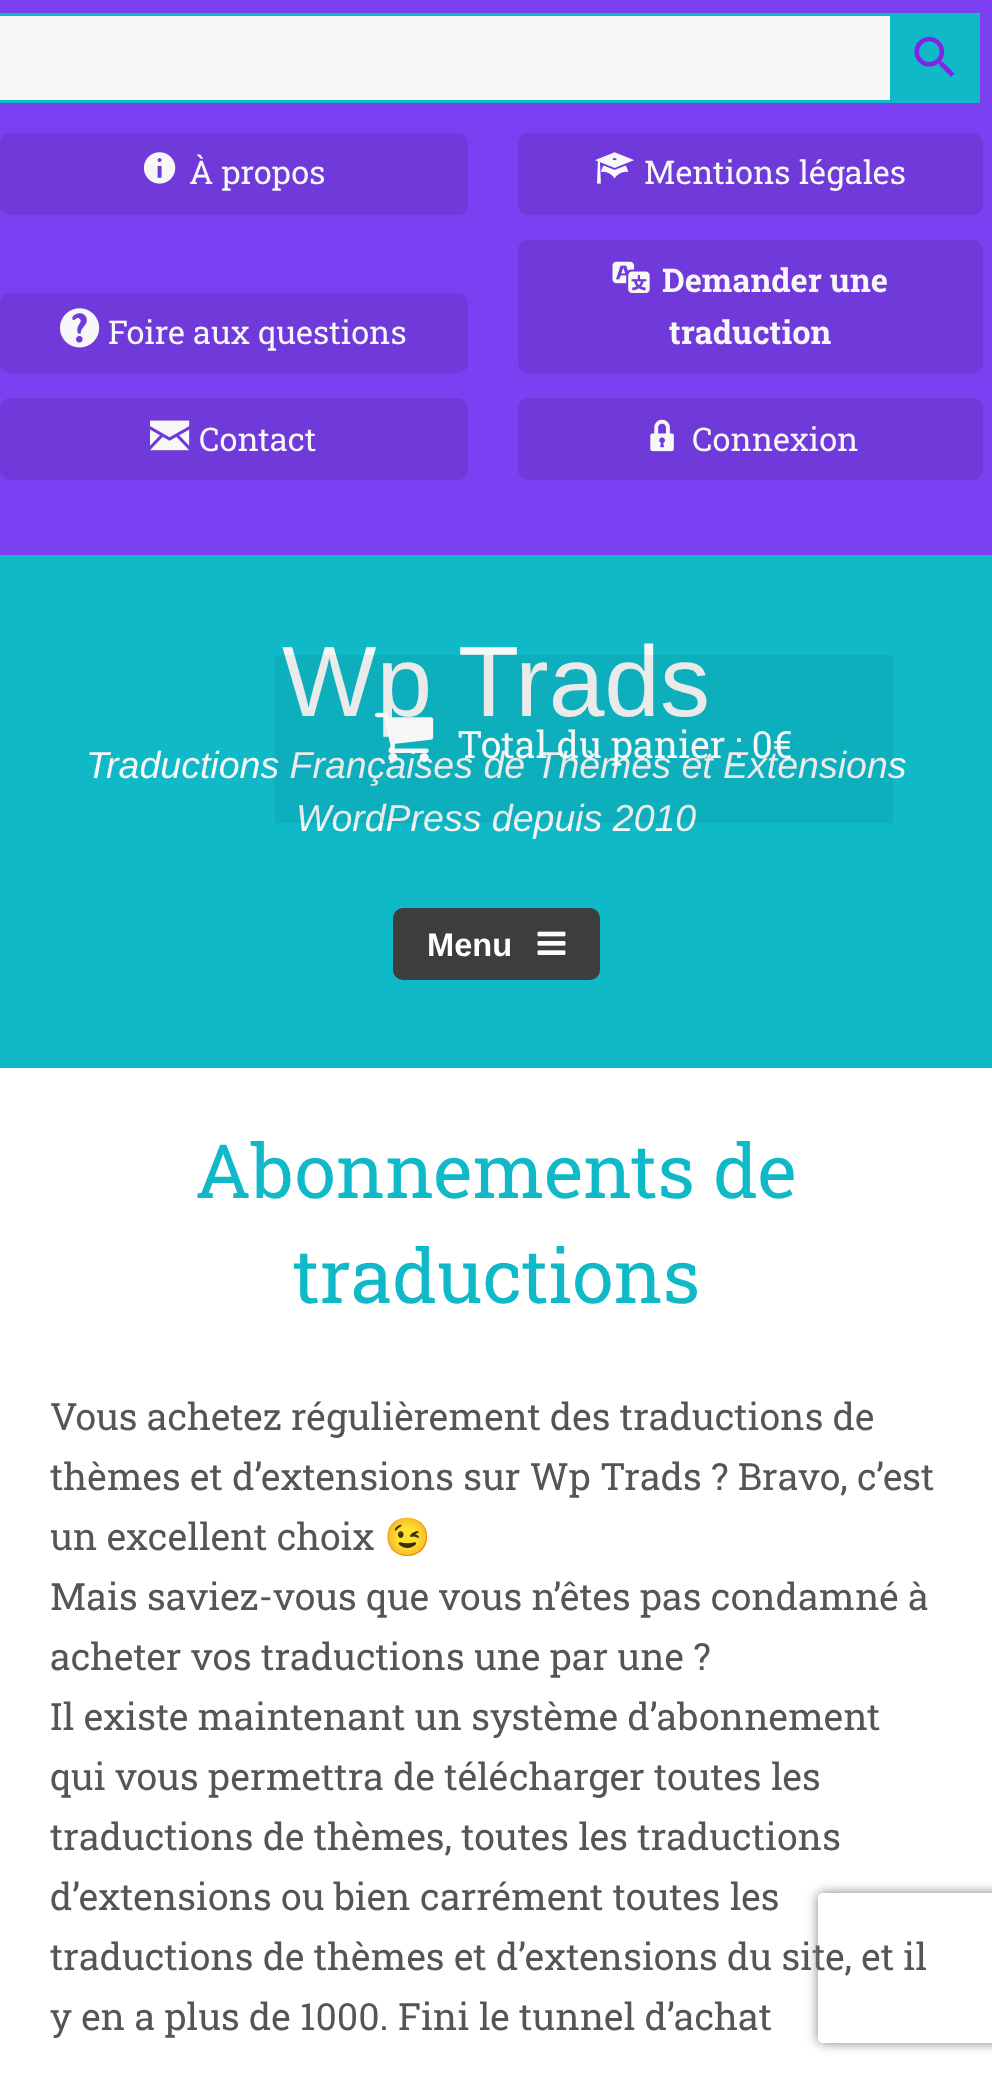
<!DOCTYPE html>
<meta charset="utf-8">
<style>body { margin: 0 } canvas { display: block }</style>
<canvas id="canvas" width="992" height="2076"></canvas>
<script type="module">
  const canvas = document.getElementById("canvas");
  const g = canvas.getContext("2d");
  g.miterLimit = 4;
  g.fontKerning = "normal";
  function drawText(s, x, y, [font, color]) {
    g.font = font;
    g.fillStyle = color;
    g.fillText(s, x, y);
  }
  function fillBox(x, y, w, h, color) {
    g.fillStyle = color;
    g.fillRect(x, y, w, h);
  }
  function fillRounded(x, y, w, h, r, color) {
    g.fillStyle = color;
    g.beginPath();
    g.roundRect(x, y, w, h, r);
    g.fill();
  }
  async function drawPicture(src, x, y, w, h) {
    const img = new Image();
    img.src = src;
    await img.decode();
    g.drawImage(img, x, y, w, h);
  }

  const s1 = ["32.6px Roboto Slab", "#F7F7F7"];
  const s2 = ["bold 32.6px Roboto Slab", "#F7F7F7"];
  const s3 = ["100px Liberation Sans", "#F7F7F7"];
  const s4 = ["italic 37.5px Liberation Sans", "#F7F7F7"];
  const s5 = ["37.5px Roboto Slab", "#F7F7F7"];
  const s6 = ["bold 32.6px Liberation Sans", "#FFFFFF"];
  const s7 = ["75px Roboto Slab", "#0FB9C8"];
  const s8 = ["37.5px Roboto Slab", "#555555"];
  const s9 = ["37.5px Noto Color Emoji", "#555555"];

  fillBox(0, 0, 992, 2076, "#FFFFFF");
  fillBox(0, 0, 992, 555, "#7B40F1");
  fillBox(0, 16, 890, 84, "#F7F7F7");
  fillBox(0, 13, 890, 3, "#0FB9C8");
  fillBox(0, 100, 890, 3, "#0FB9C8");
  fillBox(890, 13, 90, 90, "#0FB9C8");
  await drawPicture("pic1.png", 914, 36, 41, 41);
  fillRounded(0, 133, 468, 82, 10, "#6F3AD9");
  await drawPicture("pic2.png", 143, 152, 33, 32);
  drawText("À propos", 189, 184, s1);
  fillRounded(518, 133, 465, 82, 10, "#6F3AD9");
  await drawPicture("pic3.png", 595, 152, 39, 32);
  drawText("Mentions légales", 644, 184, s1);
  fillRounded(0, 293, 468, 80, 10, "#6F3AD9");
  await drawPicture("pic4.png", 60, 308, 40, 40);
  drawText("Foire aux questions", 108, 344, s1);
  fillRounded(518, 240, 465, 133, 10, "#6F3AD9");
  await drawPicture("pic5.png", 612, 261, 38, 32);
  drawText("Demander une", 662, 292, s2);
  drawText("traduction", 669, 344, s2);
  fillRounded(0, 398, 468, 82, 10, "#6F3AD9");
  await drawPicture("pic6.png", 150, 420, 40, 31);
  drawText("Contact", 199, 451, s1);
  fillRounded(518, 398, 465, 82, 10, "#6F3AD9");
  await drawPicture("pic7.png", 650, 419, 24, 33);
  drawText("Connexion", 692, 451, s1);
  fillBox(0, 555, 992, 513, "#0FB9C8");
  drawText("Wp Trads", 282, 716, s3);
  drawText("Traductions Françaises de Thèmes et Extensions", 86, 778, s4);
  drawText("WordPress depuis 2010", 296, 831, s4);
  fillBox(275, 655, 618, 168, "rgba(0, 0, 0, 0.05)");
  await drawPicture("pic8.png", 375, 712, 59, 50);
  drawText("Total du panier : 0€", 457, 758, s5);
  fillRounded(393, 908, 207, 72, 10, "#3D3D3D");
  drawText("Menu", 427, 956, s6);
  await drawPicture("pic9.png", 537, 931, 29, 24);
  drawText("Abonnements de", 195, 1198, s7);
  drawText("traductions", 293, 1303, s7);
  drawText("Vous achetez régulièrement des traductions de", 50, 1430, s8);
  drawText("thèmes et d’extensions sur Wp Trads ? Bravo, c’est", 50, 1490, s8);
  drawText("un excellent choix", 50, 1550, s8);
  drawText("😉", 384, 1550, s9);
  drawText("Mais saviez-vous que vous n’êtes pas condamné à", 50, 1610, s8);
  drawText("acheter vos traductions une par une ?", 50, 1670, s8);
  drawText("Il existe maintenant un système d’abonnement", 50, 1730, s8);
  drawText("qui vous permettra de télécharger toutes les", 50, 1790, s8);
  drawText("traductions de thèmes, toutes les traductions", 50, 1850, s8);
  drawText("d’extensions ou bien carrément toutes les", 50, 1910, s8);
  drawText("traductions de thèmes et d’extensions du site, et il", 50, 1970, s8);
  drawText("y en a plus de 1000. Fini le tunnel d’achat", 50, 2030, s8);
  g.save();
  g.beginPath();
  g.moveTo(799, 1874);
  g.lineTo(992, 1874);
  g.lineTo(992, 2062);
  g.lineTo(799, 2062);
  g.closePath();
  g.moveTo(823, 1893);
  g.lineTo(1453, 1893);
  g.bezierCurveTo(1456, 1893, 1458, 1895, 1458, 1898);
  g.lineTo(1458, 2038);
  g.bezierCurveTo(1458, 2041, 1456, 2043, 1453, 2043);
  g.lineTo(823, 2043);
  g.bezierCurveTo(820, 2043, 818, 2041, 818, 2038);
  g.lineTo(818, 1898);
  g.bezierCurveTo(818, 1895, 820, 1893, 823, 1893);
  g.closePath();
  g.clip("evenodd");
  g.fillStyle = "#808080";
  g.filter = "blur(6px)";
  g.beginPath();
  g.roundRect(818, 1893, 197, 150, 5);
  g.fill();
  g.filter = "none";
  g.restore();
</script>
